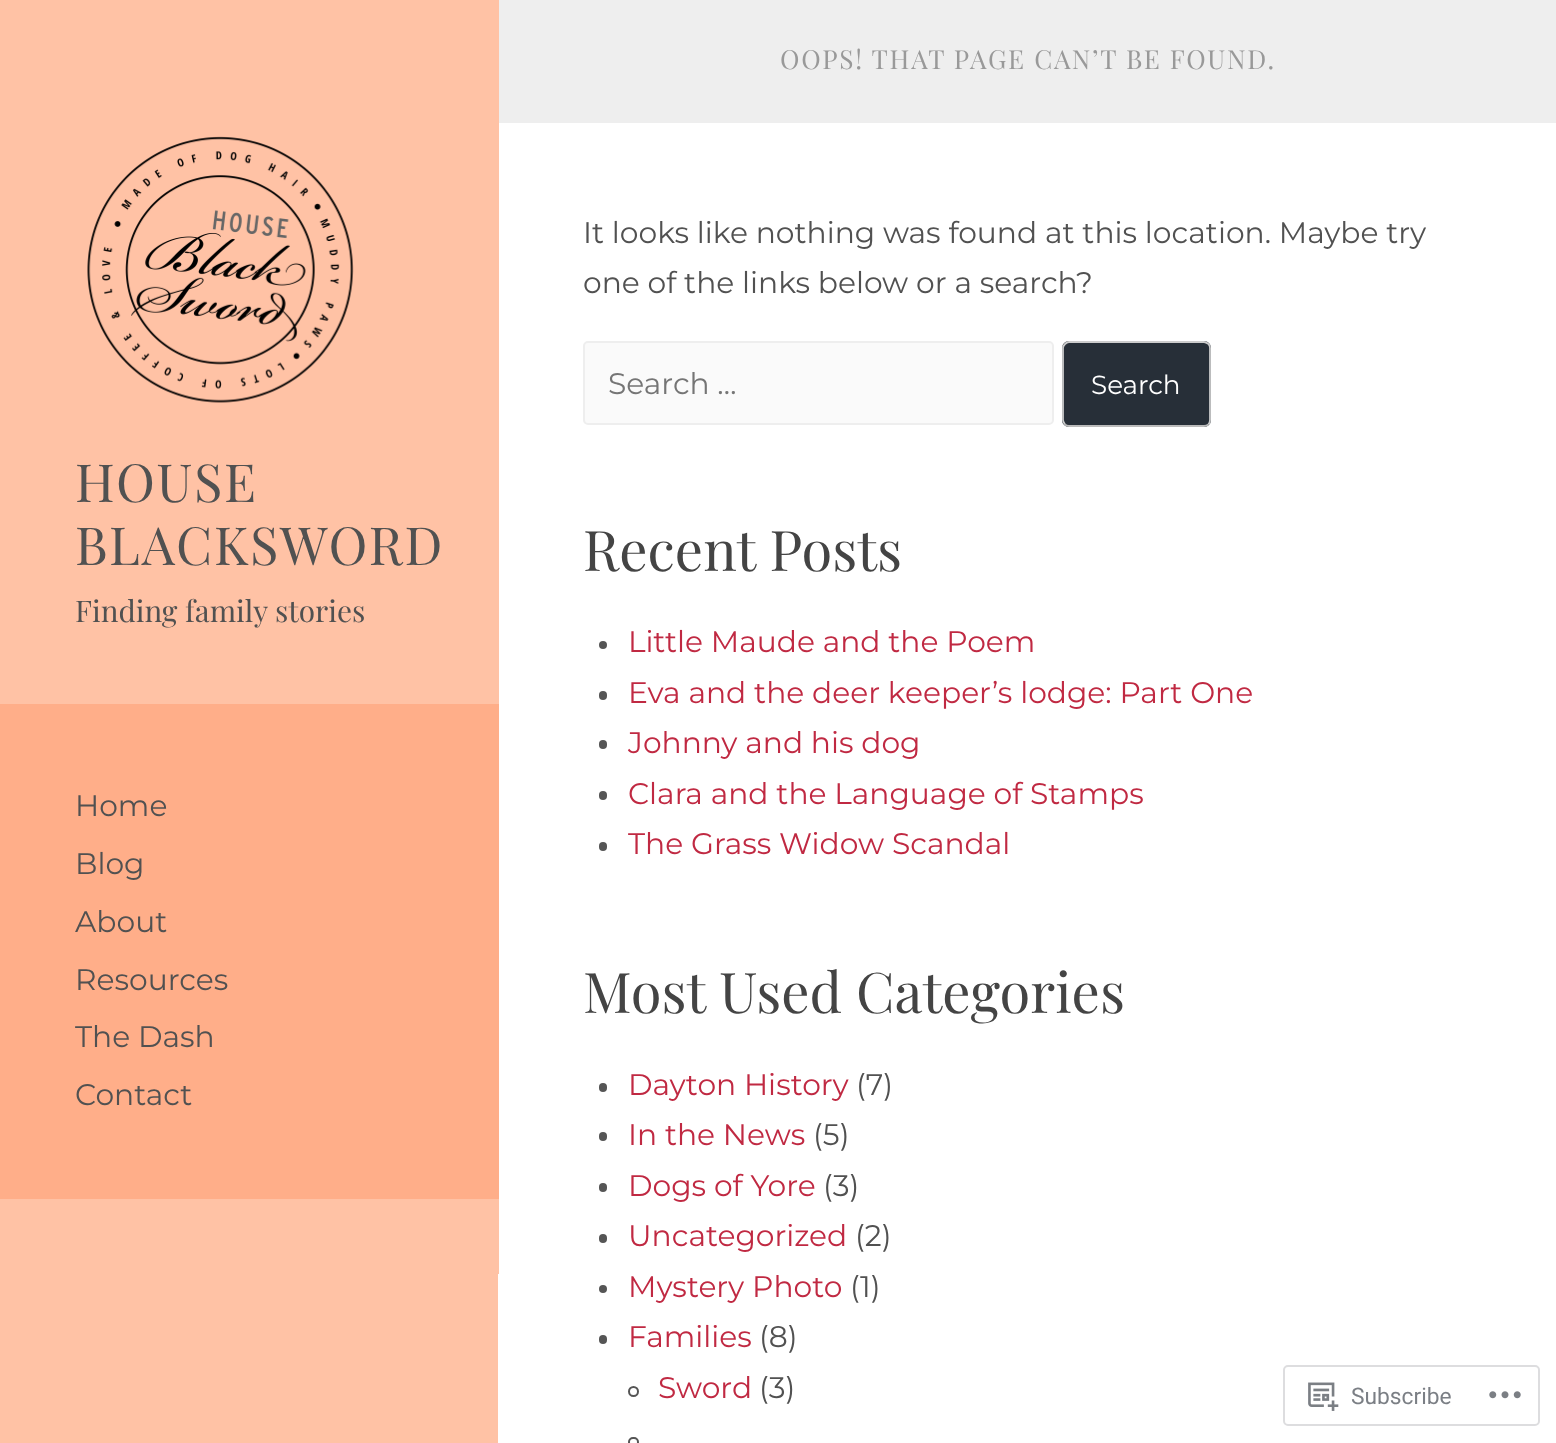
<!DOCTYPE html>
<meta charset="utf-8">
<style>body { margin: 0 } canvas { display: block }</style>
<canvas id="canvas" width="1556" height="1443"></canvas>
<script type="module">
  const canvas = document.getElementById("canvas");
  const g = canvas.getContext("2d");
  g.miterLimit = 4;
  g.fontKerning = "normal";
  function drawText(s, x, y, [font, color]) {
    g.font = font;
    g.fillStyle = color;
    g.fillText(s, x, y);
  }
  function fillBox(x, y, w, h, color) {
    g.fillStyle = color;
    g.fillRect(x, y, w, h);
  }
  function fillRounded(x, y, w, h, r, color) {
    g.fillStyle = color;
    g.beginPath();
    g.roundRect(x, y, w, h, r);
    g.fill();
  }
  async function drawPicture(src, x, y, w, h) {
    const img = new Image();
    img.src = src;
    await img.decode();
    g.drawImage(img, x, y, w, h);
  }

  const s1 = ["52.5px Playfair Display", "#515151"];
  const s2 = ["29.75px Playfair Display", "#515151"];
  const s3 = ["29.75px Montserrat", "#515151"];
  const s4 = ["26.25px Playfair Display", "#999999"];
  const s5 = ["29.75px Montserrat", "#757575"];
  const s6 = ["26.25px Montserrat", "#FFFFFF"];
  const s7 = ["56px Playfair Display", "#444444"];
  const s8 = ["29.75px Montserrat", "#C02942"];
  const s9 = ["22.75px Roboto", "#7B7F85"];

  fillBox(0, 0, 1556, 1443, "#FFC2A5");
  fillBox(498, 123, 1058, 1320, "#FFFFFF");
  fillBox(498, 123, 1, 1151, "#FFC2A5");
  await drawPicture("pic1.png", 87, 136, 267, 267);
  g.letterSpacing = "1.75px";
  drawText("HOUSE", 75, 502, s1);
  drawText("BLACKSWORD", 75, 565, s1);
  g.letterSpacing = "0px";
  drawText("Finding family stories", 75, 622, s2);
  fillBox(0, 704, 499, 495, "#FFAE89");
  drawText("Home", 75, 816, s3);
  drawText("Blog", 75, 874, s3);
  drawText("About", 75, 932, s3);
  drawText("Resources", 75, 990, s3);
  drawText("The Dash", 75, 1047, s3);
  drawText("Contact", 75, 1105, s3);
  fillBox(499, 0, 1057, 123, "#EEEEEE");
  g.letterSpacing = "1.75px";
  drawText("OOPS! THAT PAGE CAN’T BE FOUND.", 780, 69, s4);
  g.letterSpacing = "0px";
  drawText("It looks like nothing was found at this location. Maybe try", 583, 243, s3);
  drawText("one of the links below or a search?", 583, 293, s3);
  g.fillStyle = "#FAFAFA";
  g.beginPath();
  g.roundRect(584, 342, 469, 82, 4);
  g.fill();
  g.strokeStyle = "#EEEEEE";
  g.lineWidth = 2;
  g.stroke();
  drawText("Search …", 608, 394, s5);
  fillRounded(1062, 341, 149, 86, 7, "#272F38");
  g.beginPath();
  g.moveTo(1208.5, 424.5);
  g.bezierCurveTo(1207, 425.5, 1205.5, 426, 1204, 426);
  g.lineTo(1069, 426);
  g.bezierCurveTo(1067.5, 426, 1066, 425.5, 1065, 424.5);
  g.strokeStyle = "#BBBBBB";
  g.lineWidth = 1.8;
  g.stroke();
  g.beginPath();
  g.moveTo(1065, 424.5);
  g.bezierCurveTo(1064, 423, 1063, 421.5, 1063, 420);
  g.lineTo(1063, 348);
  g.bezierCurveTo(1063, 346.5, 1064, 345, 1065, 344);
  g.bezierCurveTo(1066, 343, 1067.5, 342, 1069, 342);
  g.lineTo(1204, 342);
  g.bezierCurveTo(1205.5, 342, 1207, 343, 1208.5, 344);
  g.bezierCurveTo(1209.5, 345, 1210, 346.5, 1210, 348);
  g.lineTo(1210, 420);
  g.bezierCurveTo(1210, 421.5, 1209.5, 423, 1208.5, 424.5);
  g.strokeStyle = "#CCCCCC";
  g.stroke();
  drawText("Search", 1091, 394, s6);
  drawText("Recent Posts", 583, 571, s7);
  g.fillStyle = "#555555";
  g.beginPath();
  g.arc(603, 645, 4, 0, Math.PI * 2);
  g.fill();
  drawText("Little Maude and the Poem", 628, 652, s8);
  fillRounded(599, 691, 8, 9, 4, "#555555");
  drawText("Eva and the deer keeper’s lodge: Part One", 628, 703, s8);
  fillRounded(599, 740, 8, 9, 4, "#555555");
  drawText("Johnny and his dog", 628, 753, s8);
  fillRounded(599, 791, 8, 9, 4, "#555555");
  drawText("Clara and the Language of Stamps", 628, 804, s8);
  fillRounded(599, 842, 8, 9, 4, "#555555");
  drawText("The Grass Widow Scandal", 628, 854, s8);
  drawText("Most Used Categories", 583, 1013, s7);
  fillRounded(599, 1083, 8, 9, 4, "#555555");
  drawText("Dayton History", 628, 1095, s8);
  drawText("(7)", 856, 1095, s3);
  fillRounded(599, 1132, 8, 9, 4, "#555555");
  drawText("In the News", 628, 1145, s8);
  drawText("(5)", 813, 1145, s3);
  fillRounded(599, 1183, 8, 9, 4, "#555555");
  drawText("Dogs of Yore", 628, 1196, s8);
  drawText("(3)", 823, 1196, s3);
  fillRounded(599, 1234, 8, 9, 4, "#555555");
  drawText("Uncategorized", 628, 1246, s8);
  drawText("(2)", 855, 1246, s3);
  g.fillStyle = "#555555";
  g.beginPath();
  g.arc(603, 1289, 4, 0, Math.PI * 2);
  g.fill();
  drawText("Mystery Photo", 628, 1297, s8);
  drawText("(1)", 850, 1297, s3);
  fillRounded(599, 1335, 8, 9, 4, "#555555");
  drawText("Families", 628, 1347, s8);
  drawText("(8)", 759, 1347, s3);
  g.beginPath();
  g.arc(633.5, 1391.5, 4.5, 0, Math.PI * 2);
  g.strokeStyle = "#555555";
  g.lineWidth = 2;
  g.stroke();
  drawText("Sword", 658, 1398, s8);
  drawText("(3)", 759, 1398, s3);
  g.beginPath();
  g.roundRect(629, 1438, 9, 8, 4);
  g.stroke();
  g.beginPath();
  g.roundRect(1284, 1366, 255, 59, 4);
  g.strokeStyle = "#DDDDDF";
  g.stroke();
  await drawPicture("pic2.png", 1308, 1382, 31, 29);
  drawText("Subscribe", 1351, 1404, s9);
  await drawPicture("pic3.png", 1489, 1391, 32, 8);
</script>
